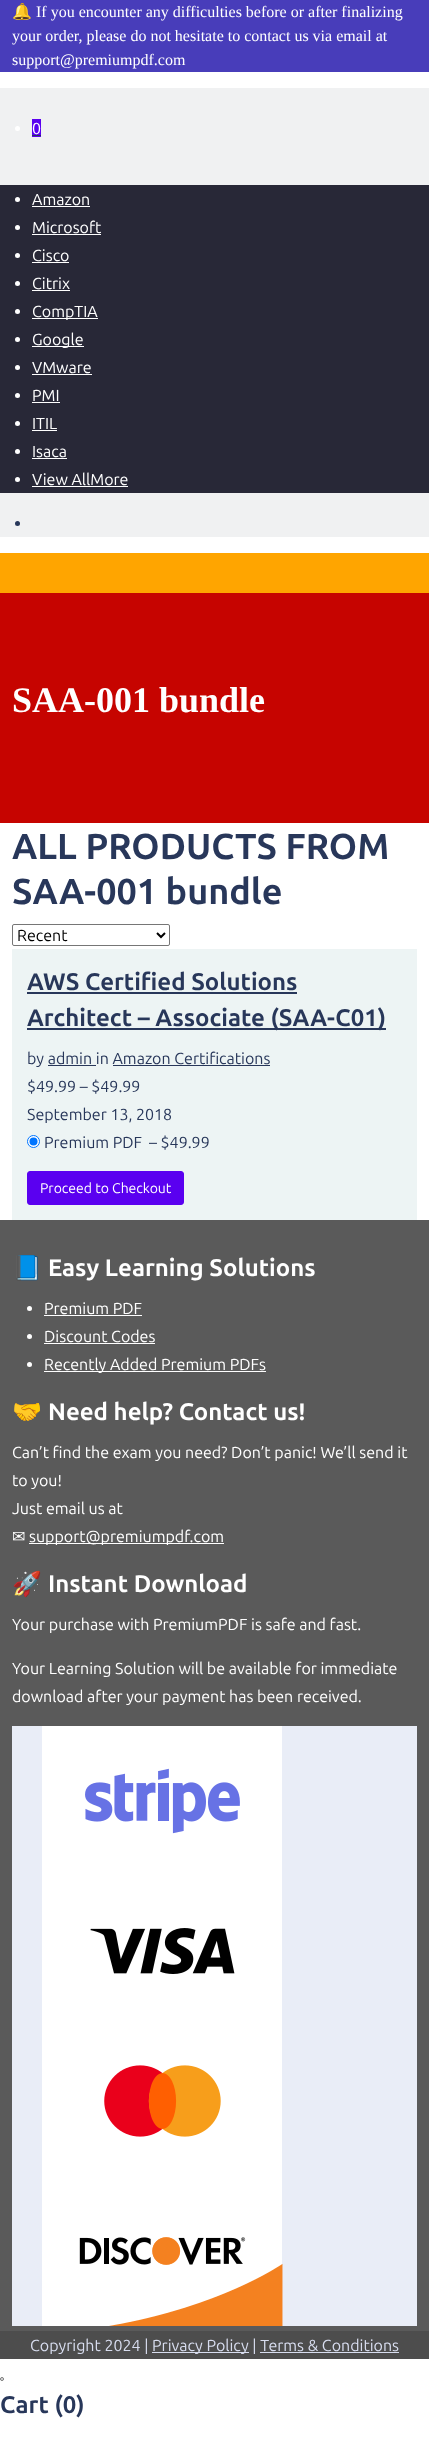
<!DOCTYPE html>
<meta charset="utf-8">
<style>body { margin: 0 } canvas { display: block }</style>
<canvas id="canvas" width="429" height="2442"></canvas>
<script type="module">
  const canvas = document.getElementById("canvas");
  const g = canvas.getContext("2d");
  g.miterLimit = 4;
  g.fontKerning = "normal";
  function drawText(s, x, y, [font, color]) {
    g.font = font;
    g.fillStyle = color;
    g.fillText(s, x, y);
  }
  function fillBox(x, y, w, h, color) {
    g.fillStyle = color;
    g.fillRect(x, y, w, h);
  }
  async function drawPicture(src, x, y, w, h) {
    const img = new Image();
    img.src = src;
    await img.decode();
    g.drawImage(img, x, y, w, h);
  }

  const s1 = ["16px Noto Color Emoji", "#FFFFFF"];
  const s2 = ["16px Liberation Serif", "#FFFFFF"];
  const s3 = ["16px Ubuntu", "#FFFFFF"];
  const s4 = ["bold 36px Liberation Serif", "#FFFFFF"];
  const s5 = ["bold 36px Ubuntu", "#28375A"];
  const s6 = ["16px Ubuntu", "#000000"];
  const s7 = ["bold 24px Ubuntu", "#28375A"];
  const s8 = ["16px Ubuntu", "#28375A"];
  const s9 = ["14px Ubuntu", "#FFFFFF"];
  const s10 = ["bold 24px Noto Color Emoji", "#FFFFFF"];
  const s11 = ["bold 24px Ubuntu", "#FFFFFF"];
  const s12 = ["16px DejaVu Sans", "#FFFFFF"];
  const s13 = ["16px Ubuntu", "#D8DDEF"];

  fillBox(0, 0, 429, 2442, "#FFFFFF");
  fillBox(0, 0, 429, 72, "#483DBA");
  drawText("🔔", 12, 17, s1);
  drawText("If you encounter any difficulties before or after finalizing", 36, 17, s2);
  drawText("your order, please do not hesitate to contact us via email at", 12, 41, s2);
  drawText("support@premiumpdf.com", 12, 65, s2);
  fillBox(0, 88, 429, 449, "#F0F1F2");
  g.fillStyle = "#FFFFFF";
  g.beginPath();
  g.arc(17.5, 128.5, 2.5, 0, Math.PI * 2);
  g.fill();
  fillBox(32, 119, 9, 18, "#5A00F0");
  drawText("0", 32, 134, s3);
  fillBox(32, 135, 9, 1, "#28375A");
  fillBox(0, 185, 429, 308, "#282837");
  g.fillStyle = "#FFFFFF";
  g.beginPath();
  g.arc(17.5, 199.5, 2.5, 0, Math.PI * 2);
  g.fill();
  drawText("Amazon", 32, 205, s3);
  fillBox(32, 206, 58, 1, "#FFFFFF");
  g.beginPath();
  g.arc(17.5, 227.5, 2.5, 0, Math.PI * 2);
  g.fill();
  drawText("Microsoft", 32, 233, s3);
  fillBox(32, 234, 69, 1, "#FFFFFF");
  g.beginPath();
  g.arc(17.5, 255.5, 2.5, 0, Math.PI * 2);
  g.fill();
  drawText("Cisco", 32, 261, s3);
  fillBox(32, 262, 37, 1, "#FFFFFF");
  g.beginPath();
  g.arc(17.5, 283.5, 2.5, 0, Math.PI * 2);
  g.fill();
  drawText("Citrix", 32, 289, s3);
  fillBox(32, 290, 38, 1, "#FFFFFF");
  g.beginPath();
  g.arc(17.5, 311.5, 2.5, 0, Math.PI * 2);
  g.fill();
  fillBox(32, 318, 66, 1, "#FFFFFF");
  drawText("CompTIA", 32, 317, s3);
  g.beginPath();
  g.arc(17.5, 339.5, 2.5, 0, Math.PI * 2);
  g.fill();
  fillBox(32, 346, 52, 1, "#FFFFFF");
  drawText("Google", 32, 345, s3);
  g.beginPath();
  g.arc(17.5, 367.5, 2.5, 0, Math.PI * 2);
  g.fill();
  drawText("VMware", 32, 373, s3);
  fillBox(32, 374, 60, 1, "#FFFFFF");
  g.beginPath();
  g.arc(17.5, 395.5, 2.5, 0, Math.PI * 2);
  g.fill();
  drawText("PMI", 32, 401, s3);
  fillBox(32, 402, 28, 1, "#FFFFFF");
  g.beginPath();
  g.arc(17.5, 423.5, 2.5, 0, Math.PI * 2);
  g.fill();
  drawText("ITIL", 32, 429, s3);
  fillBox(32, 430, 25, 1, "#FFFFFF");
  g.beginPath();
  g.arc(17.5, 451.5, 2.5, 0, Math.PI * 2);
  g.fill();
  drawText("Isaca", 32, 457, s3);
  fillBox(32, 458, 35, 1, "#FFFFFF");
  g.beginPath();
  g.arc(17.5, 479.5, 2.5, 0, Math.PI * 2);
  g.fill();
  drawText("View AllMore", 32, 485, s3);
  fillBox(32, 486, 96, 1, "#FFFFFF");
  g.fillStyle = "#28375A";
  g.beginPath();
  g.arc(17.5, 523.5, 2.5, 0, Math.PI * 2);
  g.fill();
  fillBox(0, 553, 429, 40, "#FFA500");
  fillBox(0, 593, 429, 230, "#C60400");
  drawText("SAA-001 bundle", 12, 712, s4);
  drawText("ALL PRODUCTS FROM", 12, 859, s5);
  drawText("SAA-001 bundle", 12, 904, s5);
  g.beginPath();
  g.roundRect(12.5, 924.5, 157, 21, 1.5);
  g.strokeStyle = "#767676";
  g.stroke();
  g.beginPath();
  g.moveTo(157, 933);
  g.lineTo(161, 937);
  g.lineTo(165, 933);
  g.strokeStyle = "#000000";
  g.lineWidth = 2;
  g.stroke();
  drawText("Recent", 17, 941, s6);
  fillBox(12, 949, 405, 271, "#EDF4F4");
  drawText("AWS Certified Solutions", 27, 990, s7);
  fillBox(27, 992, 270, 2, "#28375A");
  fillBox(27, 1028, 359, 2, "#28375A");
  drawText("Architect – Associate (SAA-C01)", 27, 1026, s7);
  drawText("by admin in Amazon Certifications", 27, 1064, s8);
  fillBox(48, 1065, 48, 1, "#28375A");
  fillBox(113, 1065, 157, 1, "#28375A");
  drawText("$49.99 – $49.99", 27, 1092, s8);
  drawText("September 13, 2018", 27, 1120, s8);
  g.fillStyle = "#FFFFFF";
  g.beginPath();
  g.arc(33.5, 1141.5, 6, 0, Math.PI * 2);
  g.fill();
  g.strokeStyle = "#0075FF";
  g.lineWidth = 1;
  g.stroke();
  g.fillStyle = "#0075FF";
  g.beginPath();
  g.arc(33.5, 1141.5, 4, 0, Math.PI * 2);
  g.fill();
  drawText("Premium PDF", 44, 1148, s8);
  drawText("– $49.99", 149, 1148, s8);
  g.fillStyle = "#5A00F0";
  g.beginPath();
  g.roundRect(27.5, 1171.5, 156, 33, 2.5);
  g.fill();
  g.strokeStyle = "#5A00F0";
  g.stroke();
  drawText("Proceed to Checkout", 40, 1193, s9);
  fillBox(0, 1220, 429, 1111, "#5A5A5A");
  drawText("📘", 12, 1276, s10);
  drawText("Easy Learning Solutions", 48, 1276, s11);
  g.beginPath();
  g.arc(29.5, 1308.5, 2.5, 0, Math.PI * 2);
  g.fill();
  drawText("Premium PDF", 44, 1314, s3);
  fillBox(44, 1315, 98, 1, "#FFFFFF");
  g.beginPath();
  g.arc(29.5, 1336.5, 2.5, 0, Math.PI * 2);
  g.fill();
  drawText("Discount Codes", 44, 1342, s3);
  fillBox(44, 1343, 111, 1, "#FFFFFF");
  g.beginPath();
  g.arc(29.5, 1364.5, 2.5, 0, Math.PI * 2);
  g.fill();
  fillBox(44, 1371, 222, 1, "#FFFFFF");
  drawText("Recently Added Premium PDFs", 44, 1370, s3);
  drawText("🤝", 12, 1420, s10);
  drawText("Need help? Contact us!", 48, 1420, s11);
  drawText("Can’t find the exam you need? Don’t panic! We’ll send it", 12, 1458, s3);
  drawText("to you!", 12, 1486, s3);
  drawText("Just email us at", 12, 1514, s3);
  drawText("✉", 12, 1542, s12);
  fillBox(29, 1543, 195, 1, "#FFFFFF");
  drawText("support@premiumpdf.com", 29, 1542, s3);
  drawText("🚀", 12, 1592, s10);
  drawText("Instant Download", 48, 1592, s11);
  drawText("Your purchase with PremiumPDF is safe and fast.", 12, 1630, s3);
  drawText("Your Learning Solution will be available for immediate", 12, 1674, s3);
  drawText("download after your payment has been received.", 12, 1702, s3);
  fillBox(12, 1726, 405, 600, "#E9EDF7");
  await drawPicture("pic1.png", 42, 1726, 240, 150);
  await drawPicture("pic2.png", 42, 1876, 240, 150);
  await drawPicture("pic3.png", 42, 2026, 240, 150);
  await drawPicture("pic4.png", 42, 2176, 241, 150);
  fillBox(0, 2331, 429, 28, "#4D4D4D");
  drawText("Copyright 2024 |", 30, 2351, s13);
  fillBox(152, 2352, 97, 1, "#D8DDEF");
  drawText("Privacy Policy | Terms & Conditions", 152, 2351, s13);
  fillBox(260, 2352, 139, 1, "#D8DDEF");
  g.fillStyle = "#EFEFEF";
  g.beginPath();
  g.arc(2, 2379, 1.5, 0, Math.PI * 2);
  g.fill();
  g.strokeStyle = "#767676";
  g.stroke();
  drawText("Cart (0)", 0, 2413, s7);
</script>
